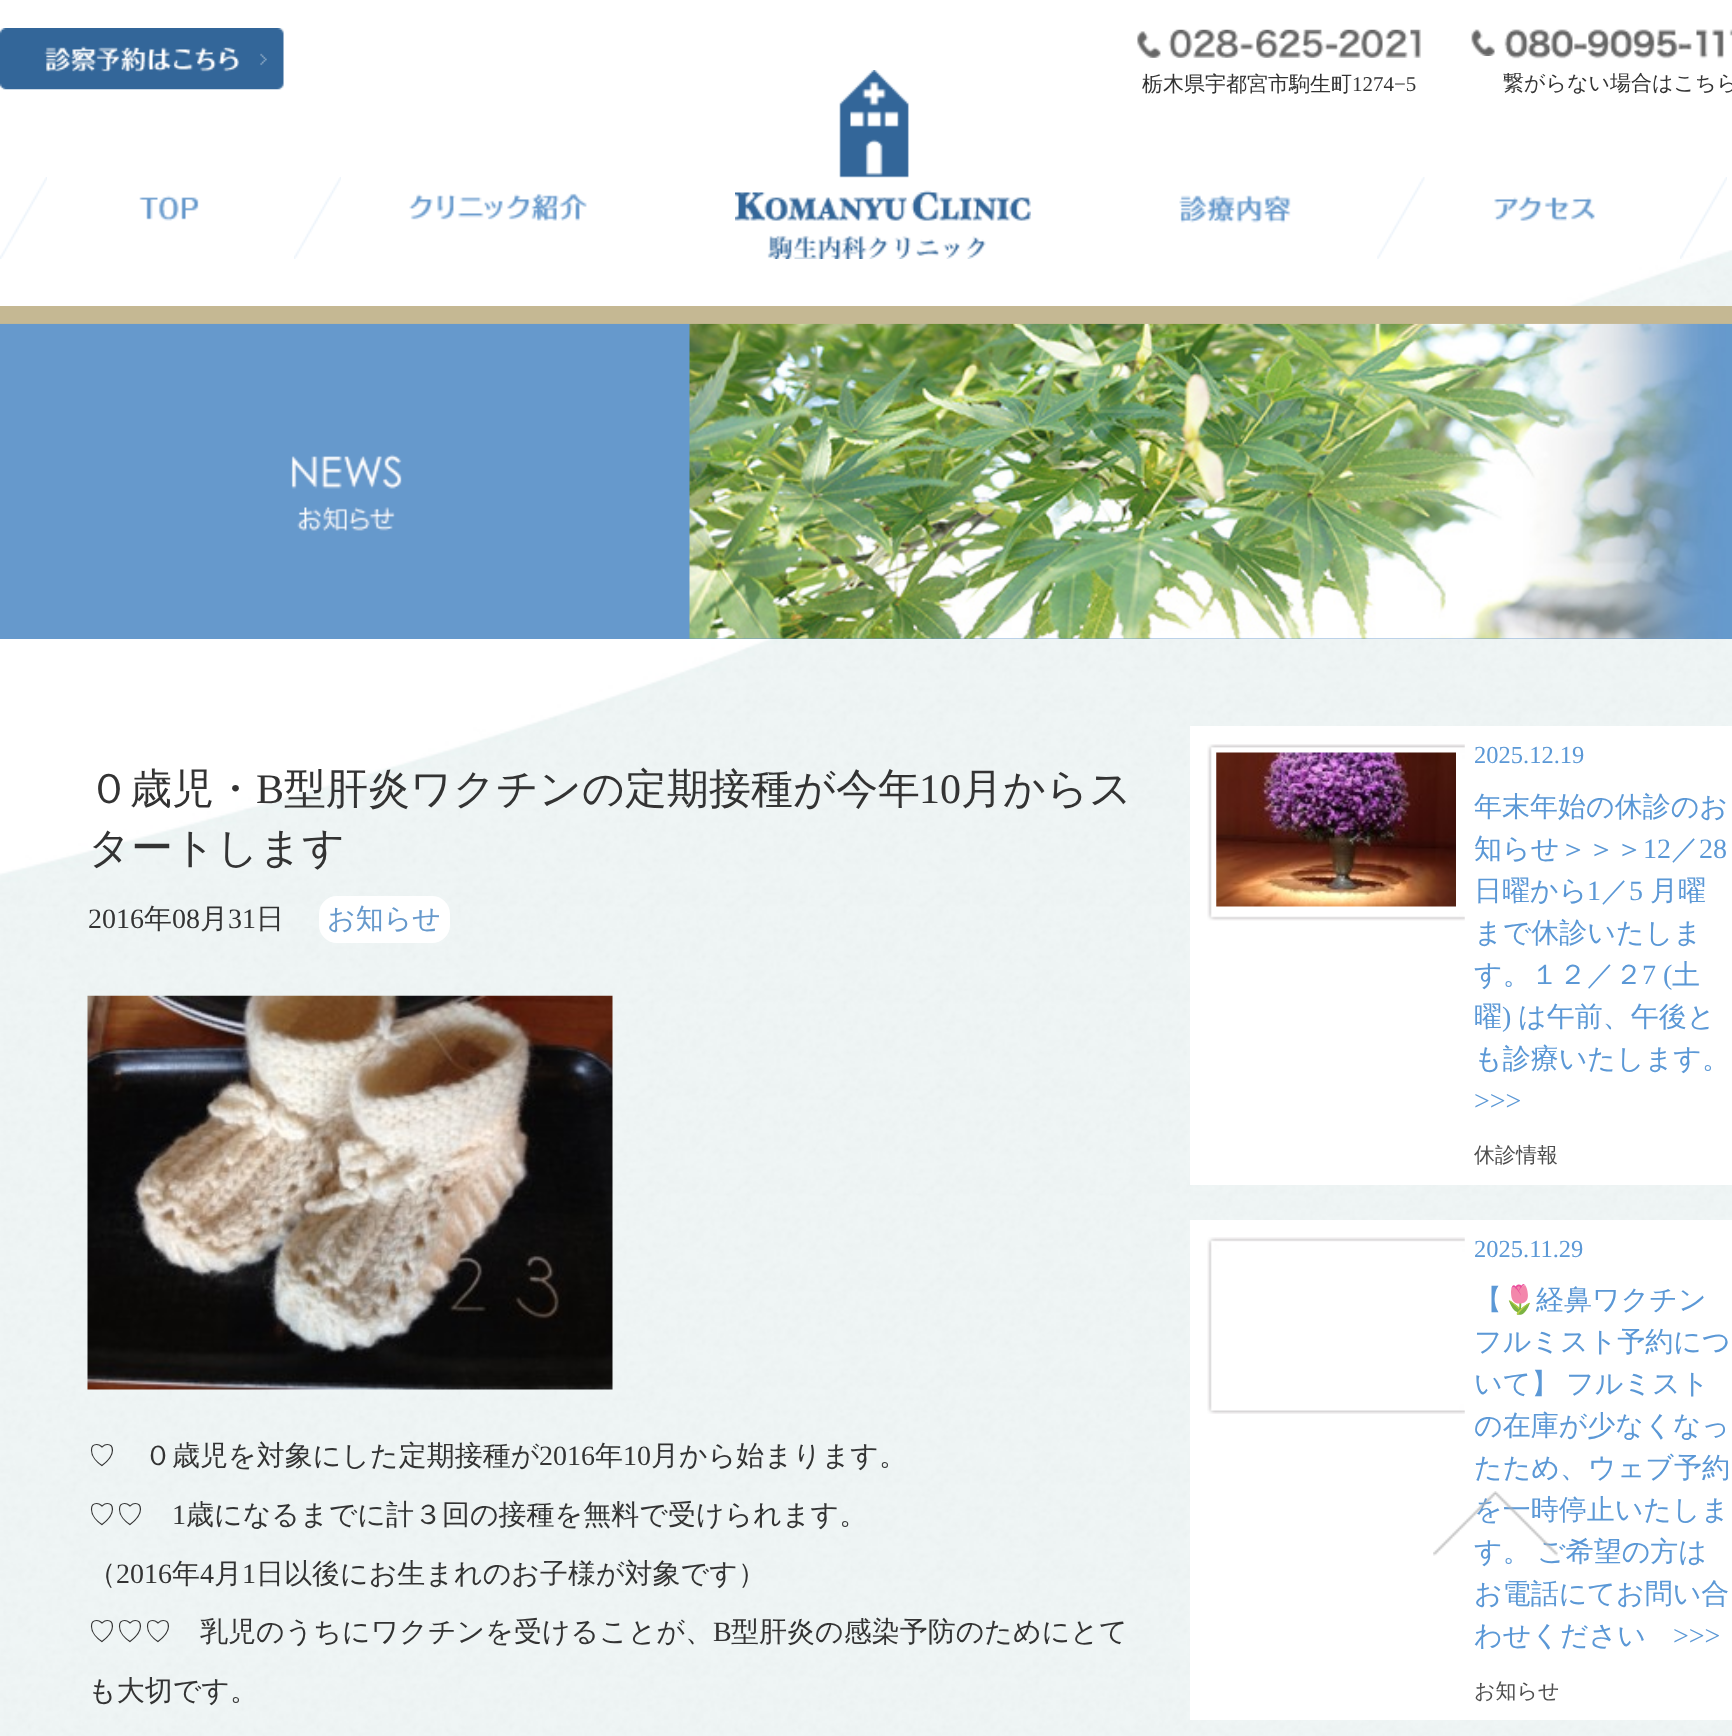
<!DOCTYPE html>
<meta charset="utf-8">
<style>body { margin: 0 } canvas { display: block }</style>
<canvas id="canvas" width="1732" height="1736"></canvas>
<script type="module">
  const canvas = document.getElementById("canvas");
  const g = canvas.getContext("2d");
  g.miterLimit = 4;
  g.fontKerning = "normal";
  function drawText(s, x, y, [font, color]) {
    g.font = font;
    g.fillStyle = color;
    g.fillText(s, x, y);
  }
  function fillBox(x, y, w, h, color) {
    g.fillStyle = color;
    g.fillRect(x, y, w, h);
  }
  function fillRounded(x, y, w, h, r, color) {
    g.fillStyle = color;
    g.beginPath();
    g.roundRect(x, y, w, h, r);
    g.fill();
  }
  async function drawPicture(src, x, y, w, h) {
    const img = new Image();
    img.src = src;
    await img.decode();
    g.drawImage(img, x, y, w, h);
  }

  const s1 = ["500 21px WenQuanYi Zen Hei", "#333333"];
  const s2 = ["21px Liberation Serif", "#333333"];
  const s3 = ["500 42px WenQuanYi Zen Hei", "#333333"];
  const s4 = ["42px Liberation Serif", "#333333"];
  const s5 = ["28px Liberation Serif", "#333333"];
  const s6 = ["500 28px WenQuanYi Zen Hei", "#333333"];
  const s7 = ["500 28px WenQuanYi Zen Hei", "#6699CC"];
  const s8 = ["24.5px Liberation Serif", "#5B98D6"];
  const s9 = ["500 28px WenQuanYi Zen Hei", "#5B98D6"];
  const s10 = ["28px Liberation Serif", "#5B98D6"];
  const s11 = ["500 21px WenQuanYi Zen Hei", "#4E4E4E"];
  const s12 = ["28px Noto Color Emoji", "#5B98D6"];

  fillBox(0, 0, 1732, 1736, "#FFFFFF");
  await drawPicture("pic1.png", 0, 250, 1732, 1486);
  fillBox(0, 306, 1732, 18, "#C5B893");
  await drawPicture("pic2.png", 0, 177, 47, 82);
  await drawPicture("pic3.png", 139, 195, 60, 26);
  await drawPicture("pic2.png", 294, 177, 47, 82);
  await drawPicture("pic4.png", 409, 193, 178, 28);
  await drawPicture("pic5.png", 735, 70, 296, 189);
  await drawPicture("pic6.png", 1179, 195, 112, 28);
  await drawPicture("pic7.png", 1377, 177, 48, 82);
  await drawPicture("pic8.png", 1494, 195, 101, 26);
  await drawPicture("pic9.png", 1680, 177, 47, 82);
  await drawPicture("pic10.png", 0, 28, 284, 62);
  await drawPicture("pic11.png", 1137, 29, 284, 29);
  drawText("栃木県宇都宮市駒生町", 1142, 91, s1);
  drawText("1274−5", 1352, 91, s2);
  await drawPicture("pic12.png", 1471, 29, 24, 27);
  await drawPicture("pic13.png", 1504, 29, 228, 30);
  drawText("繋がらない場合はこちら", 1503, 90, s1);
  fillBox(0, 324, 1732, 315, "#6699CC");
  await drawPicture("pic14.png", 0, 323, 689, 208);
  await drawPicture("pic15.png", 689, 323, 1043, 316);
  drawText("０歳児・", 88, 803, s3);
  drawText("B", 256, 803, s4);
  drawText("型肝炎ワクチンの定期接種が今年", 284, 803, s3);
  drawText("10", 919, 803, s4);
  drawText("月からス", 961, 803, s3);
  drawText("タートします", 88, 862, s3);
  drawText("2016", 88, 928, s5);
  drawText("年", 144, 928, s6);
  drawText("08", 172, 928, s5);
  drawText("月", 200, 928, s6);
  drawText("31", 228, 928, s5);
  drawText("日", 256, 928, s6);
  fillRounded(319, 896, 131, 47, 18, "#FFFFFF");
  drawText("お知らせ", 327, 928, s7);
  await drawPicture("pic16.png", 87, 995, 526, 395);
  drawText("♡　０歳児を対象にした定期接種が", 88, 1465, s6);
  drawText("2016", 539, 1465, s5);
  drawText("年", 595, 1465, s6);
  drawText("10", 623, 1465, s5);
  drawText("月から始まります。", 651, 1465, s6);
  drawText("♡♡", 88, 1524, s6);
  drawText("1", 172, 1524, s5);
  drawText("歳になるまでに計３回の接種を無料で受けられます。", 186, 1524, s6);
  drawText("（", 88, 1583, s6);
  drawText("2016", 116, 1583, s5);
  drawText("年", 172, 1583, s6);
  drawText("4", 200, 1583, s5);
  drawText("月", 214, 1583, s6);
  drawText("1", 242, 1583, s5);
  drawText("日以後にお生まれのお子様が対象です）", 256, 1583, s6);
  drawText("♡♡♡　乳児のうちにワクチンを受けることが、", 88, 1641, s6);
  drawText("B", 713, 1641, s5);
  drawText("型肝炎の感染予防のためにとて", 731, 1641, s6);
  drawText("も大切です。", 88, 1700, s6);
  fillBox(1190, 726, 542, 459, "#FFFFFF");
  await drawPicture("pic17.png", 1207, 744, 258, 177);
  await drawPicture("pic18.png", 1216, 752, 240, 155);
  drawText("2025.12.19", 1474, 763, s8);
  drawText("年末年始の休診のお", 1474, 816, s9);
  drawText("知らせ＞＞＞", 1474, 858, s9);
  drawText("12", 1643, 858, s10);
  drawText("／", 1671, 858, s9);
  drawText("28", 1699, 858, s10);
  drawText("日曜から", 1474, 900, s9);
  drawText("1", 1587, 900, s10);
  drawText("／", 1601, 900, s9);
  drawText("5", 1629, 900, s10);
  drawText("月曜", 1650, 900, s9);
  drawText("まで休診いたしま", 1474, 942, s9);
  drawText("す。１２／２", 1474, 984, s9);
  drawText("7 (", 1642, 984, s10);
  drawText("土", 1672, 984, s9);
  drawText("曜", 1474, 1026, s9);
  drawText(")", 1502, 1026, s10);
  drawText("は午前、午後と", 1518, 1026, s9);
  drawText("も診療いたします。", 1474, 1068, s9);
  drawText(">>>", 1474, 1110, s10);
  drawText("休診情報", 1474, 1162, s11);
  fillBox(1190, 1220, 542, 500, "#FFFFFF");
  await drawPicture("pic19.png", 1207, 1237, 258, 177);
  drawText("2025.11.29", 1474, 1257, s8);
  drawText("【", 1474, 1309, s9);
  drawText("🌷", 1502, 1309, s12);
  drawText("経鼻ワクチン", 1536, 1309, s9);
  drawText("フルミスト予約につ", 1474, 1351, s9);
  drawText("いて】", 1474, 1393, s9);
  drawText("フルミスト", 1566, 1393, s9);
  drawText("の在庫が少なくなっ", 1474, 1435, s9);
  drawText("たため、ウェブ予約", 1474, 1477, s9);
  drawText("を一時停止いたしま", 1474, 1519, s9);
  drawText("す。", 1474, 1561, s9);
  drawText("ご希望の方は", 1537, 1561, s9);
  drawText("お電話にてお問い合", 1474, 1603, s9);
  drawText("わせください", 1474, 1645, s9);
  drawText(">>>", 1673, 1645, s10);
  drawText("お知らせ", 1474, 1698, s11);
  await drawPicture("pic20.png", 1433, 1491, 125, 65);
</script>
